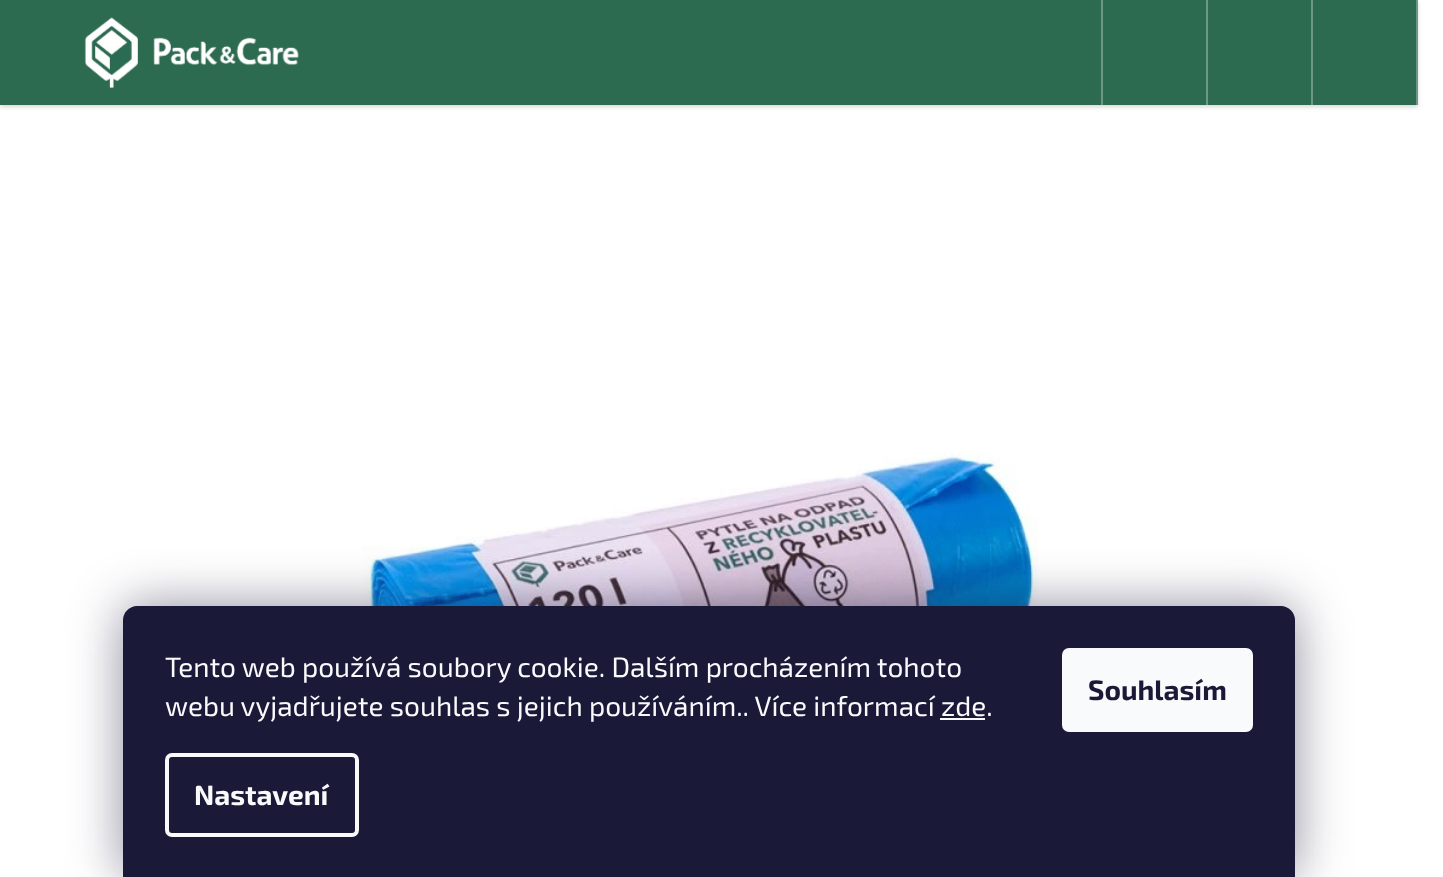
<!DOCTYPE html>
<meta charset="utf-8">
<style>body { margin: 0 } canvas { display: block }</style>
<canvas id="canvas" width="1443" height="877"></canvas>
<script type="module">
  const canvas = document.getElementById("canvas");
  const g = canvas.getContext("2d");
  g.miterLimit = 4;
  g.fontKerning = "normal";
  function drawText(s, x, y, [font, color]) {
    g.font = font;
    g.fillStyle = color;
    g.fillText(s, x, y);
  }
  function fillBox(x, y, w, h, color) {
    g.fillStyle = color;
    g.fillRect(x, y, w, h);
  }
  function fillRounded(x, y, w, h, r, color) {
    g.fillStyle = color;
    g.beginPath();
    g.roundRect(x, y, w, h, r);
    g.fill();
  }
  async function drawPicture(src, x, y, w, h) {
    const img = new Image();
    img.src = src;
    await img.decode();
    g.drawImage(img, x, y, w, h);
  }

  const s1 = ["28px 'Exo 2'", "#F8FAFB"];
  const s2 = ["bold 28px 'Exo 2'", "#F8FAFB"];
  const s3 = ["bold 28px 'Exo 2'", "#1A1937"];

  fillBox(0, 0, 1443, 877, "#FFFFFF");
  g.fillStyle = "rgba(0, 0, 0, 0.16)";
  g.filter = "blur(2px)";
  g.beginPath();
  g.rect(0, 2, 1418, 105);
  g.fill();
  g.filter = "none";
  fillBox(0, 0, 1416, 105, "#2D6B50");
  await drawPicture("pic1.png", 84, 17, 215, 71);
  fillBox(1416, 0, 2, 105, "#6C9785");
  fillBox(1101, 0, 2, 105, "#6C9785");
  fillBox(1206, 0, 2, 105, "#6C9785");
  fillBox(1311, 0, 2, 105, "#6C9785");
  await drawPicture("pic2.png", 362, 452, 676, 154);
  g.fillStyle = "rgba(27, 25, 57, 0.5)";
  g.filter = "blur(26px)";
  g.beginPath();
  g.roundRect(123, 606, 1172, 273, 14);
  g.fill();
  g.filter = "none";
  g.fillStyle = "#1A1937";
  g.beginPath();
  g.moveTo(137, 606);
  g.lineTo(1281, 606);
  g.bezierCurveTo(1288.5, 606, 1295, 612.5, 1295, 620);
  g.lineTo(1295, 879);
  g.lineTo(123, 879);
  g.lineTo(123, 620);
  g.bezierCurveTo(123, 612.5, 129.5, 606, 137, 606);
  g.closePath();
  g.fill();
  drawText("Tento web používá soubory cookie. Dalším procházením tohoto", 165, 677, s1);
  drawText("webu vyjadřujete souhlas s jejich používáním.. Více informací zde.", 165, 716, s1);
  fillBox(940, 718, 45, 2, "#F8FAFB");
  g.beginPath();
  g.roundRect(167, 755, 190, 80, 5);
  g.strokeStyle = "#F8FAFB";
  g.lineWidth = 4;
  g.stroke();
  drawText("Nastavení", 194, 805, s2);
  fillRounded(1062, 648, 191, 84, 7, "#F8FAFB");
  drawText("Souhlasím", 1088, 700, s3);
</script>
